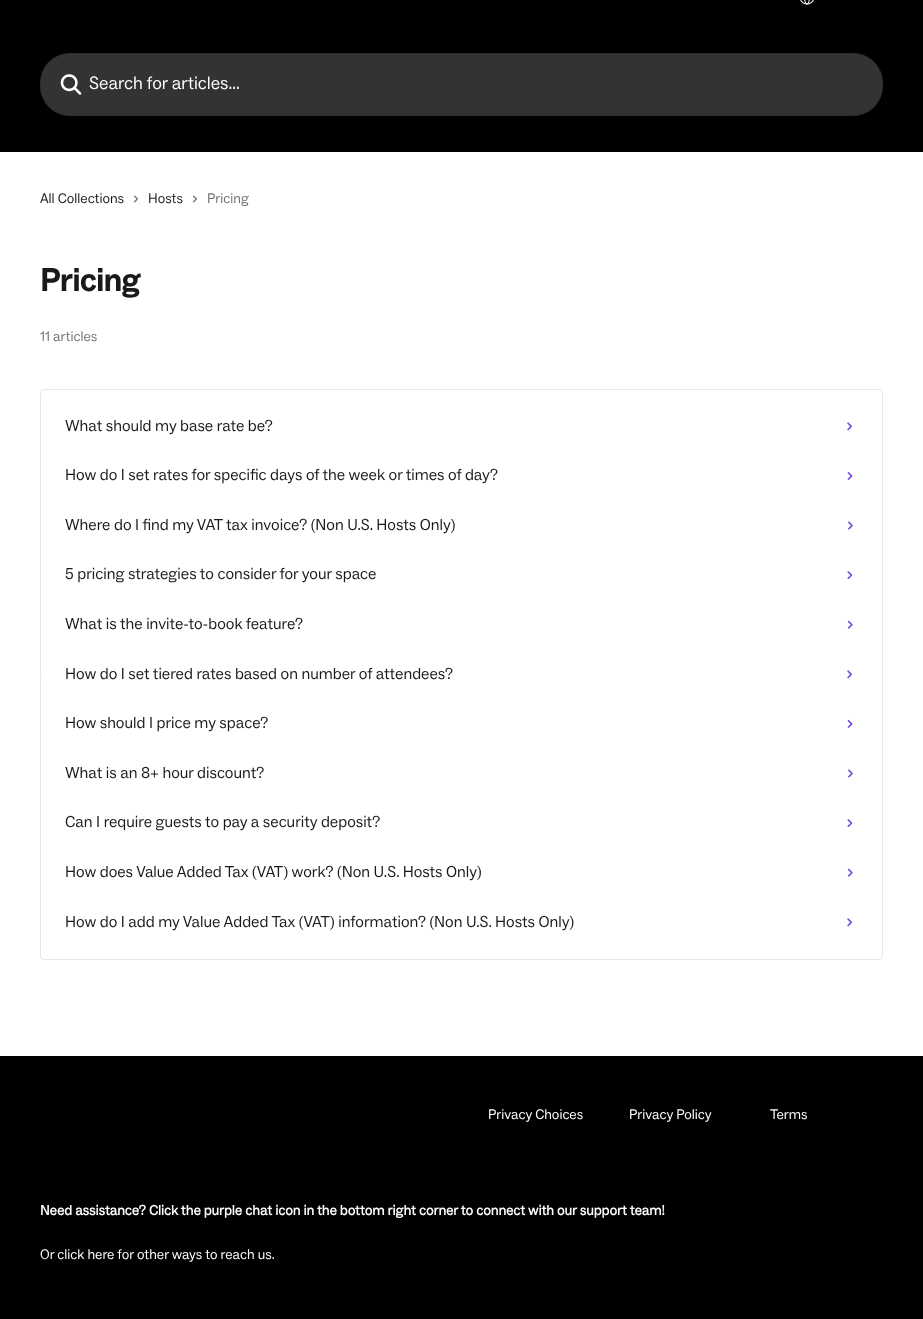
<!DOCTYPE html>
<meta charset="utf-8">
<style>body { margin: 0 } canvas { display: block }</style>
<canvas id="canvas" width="923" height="1319"></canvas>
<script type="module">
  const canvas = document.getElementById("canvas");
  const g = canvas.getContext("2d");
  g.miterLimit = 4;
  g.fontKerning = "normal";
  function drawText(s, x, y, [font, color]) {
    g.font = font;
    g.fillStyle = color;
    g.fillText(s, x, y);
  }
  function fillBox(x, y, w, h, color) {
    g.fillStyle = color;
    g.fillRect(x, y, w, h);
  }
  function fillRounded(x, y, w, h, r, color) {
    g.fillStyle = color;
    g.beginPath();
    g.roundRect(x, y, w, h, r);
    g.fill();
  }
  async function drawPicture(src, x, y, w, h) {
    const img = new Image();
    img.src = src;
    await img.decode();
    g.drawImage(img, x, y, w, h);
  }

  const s1 = ["18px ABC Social", "#FFFFFF"];
  const s2 = ["14px ABC Social", "#1A1A1A"];
  const s3 = ["14px ABC Social", "#737373"];
  const s4 = ["bold 32px 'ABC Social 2'", "#1A1A1A"];
  const s5 = ["16px ABC Social", "#1A1A1A"];
  const s6 = ["14px ABC Social", "#FFFFFF"];
  const s7 = ["bold 14px ABC Social", "#FFFFFF"];

  fillBox(0, 0, 923, 1319, "#FFFFFF");
  fillBox(0, 0, 923, 152, "#000000");
  await drawPicture("pic1.png", 800, 0, 14, 5);
  fillRounded(40, 53, 843, 63, 30, "#333333");
  g.beginPath();
  g.roundRect(40.5, 53.5, 842, 62, 29.5);
  g.strokeStyle = "rgba(0, 0, 0, 0.08)";
  g.stroke();
  await drawPicture("pic2.png", 60, 74, 22, 21);
  drawText("Search for articles...", 89, 89, s1);
  drawText("All Collections", 40, 203, s2);
  await drawPicture("pic3.png", 134, 195, 4, 8);
  drawText("Hosts", 148, 203, s2);
  await drawPicture("pic3.png", 193, 195, 4, 8);
  drawText("Pricing", 207, 203, s3);
  drawText("Pricing", 40, 291, s4);
  drawText("11 articles", 40, 341, s3);
  g.beginPath();
  g.roundRect(40.5, 389.5, 842, 570, 3.5);
  g.strokeStyle = "#E6E6E6";
  g.stroke();
  drawText("What should my base rate be?", 65, 431, s5);
  await drawPicture("pic4.png", 847, 422, 5, 9);
  drawText("How do I set rates for specific days of the week or times of day?", 65, 480, s5);
  await drawPicture("pic5.png", 847, 472, 6, 8);
  drawText("Where do I find my VAT tax invoice? (Non U.S. Hosts Only)", 65, 530, s5);
  await drawPicture("pic6.png", 848, 521, 5, 9);
  drawText("5 pricing strategies to consider for your space", 65, 579, s5);
  await drawPicture("pic7.png", 847, 571, 6, 9);
  drawText("What is the invite-to-book feature?", 65, 629, s5);
  await drawPicture("pic8.png", 847, 620, 6, 9);
  drawText("How do I set tiered rates based on number of attendees?", 65, 679, s5);
  await drawPicture("pic9.png", 847, 670, 5, 9);
  drawText("How should I price my space?", 65, 728, s5);
  await drawPicture("pic10.png", 847, 719, 6, 9);
  drawText("What is an 8+ hour discount?", 65, 778, s5);
  await drawPicture("pic11.png", 848, 769, 5, 9);
  drawText("Can I require guests to pay a security deposit?", 65, 827, s5);
  await drawPicture("pic12.png", 847, 819, 6, 9);
  drawText("How does Value Added Tax (VAT) work? (Non U.S. Hosts Only)", 65, 877, s5);
  await drawPicture("pic13.png", 847, 868, 6, 9);
  drawText("How do I add my Value Added Tax (VAT) information? (Non U.S. Hosts Only)", 65, 927, s5);
  await drawPicture("pic14.png", 847, 918, 5, 9);
  fillBox(0, 1056, 923, 263, "#000000");
  drawText("Privacy Choices", 488, 1119, s6);
  drawText("Privacy Policy", 629, 1119, s6);
  drawText("Terms", 770, 1119, s6);
  drawText("Need assistance? Click the purple chat icon in the bottom right corner to connect with our support team!", 40, 1215, s7);
  drawText("Or click here for other ways to reach us.", 40, 1259, s6);
</script>
